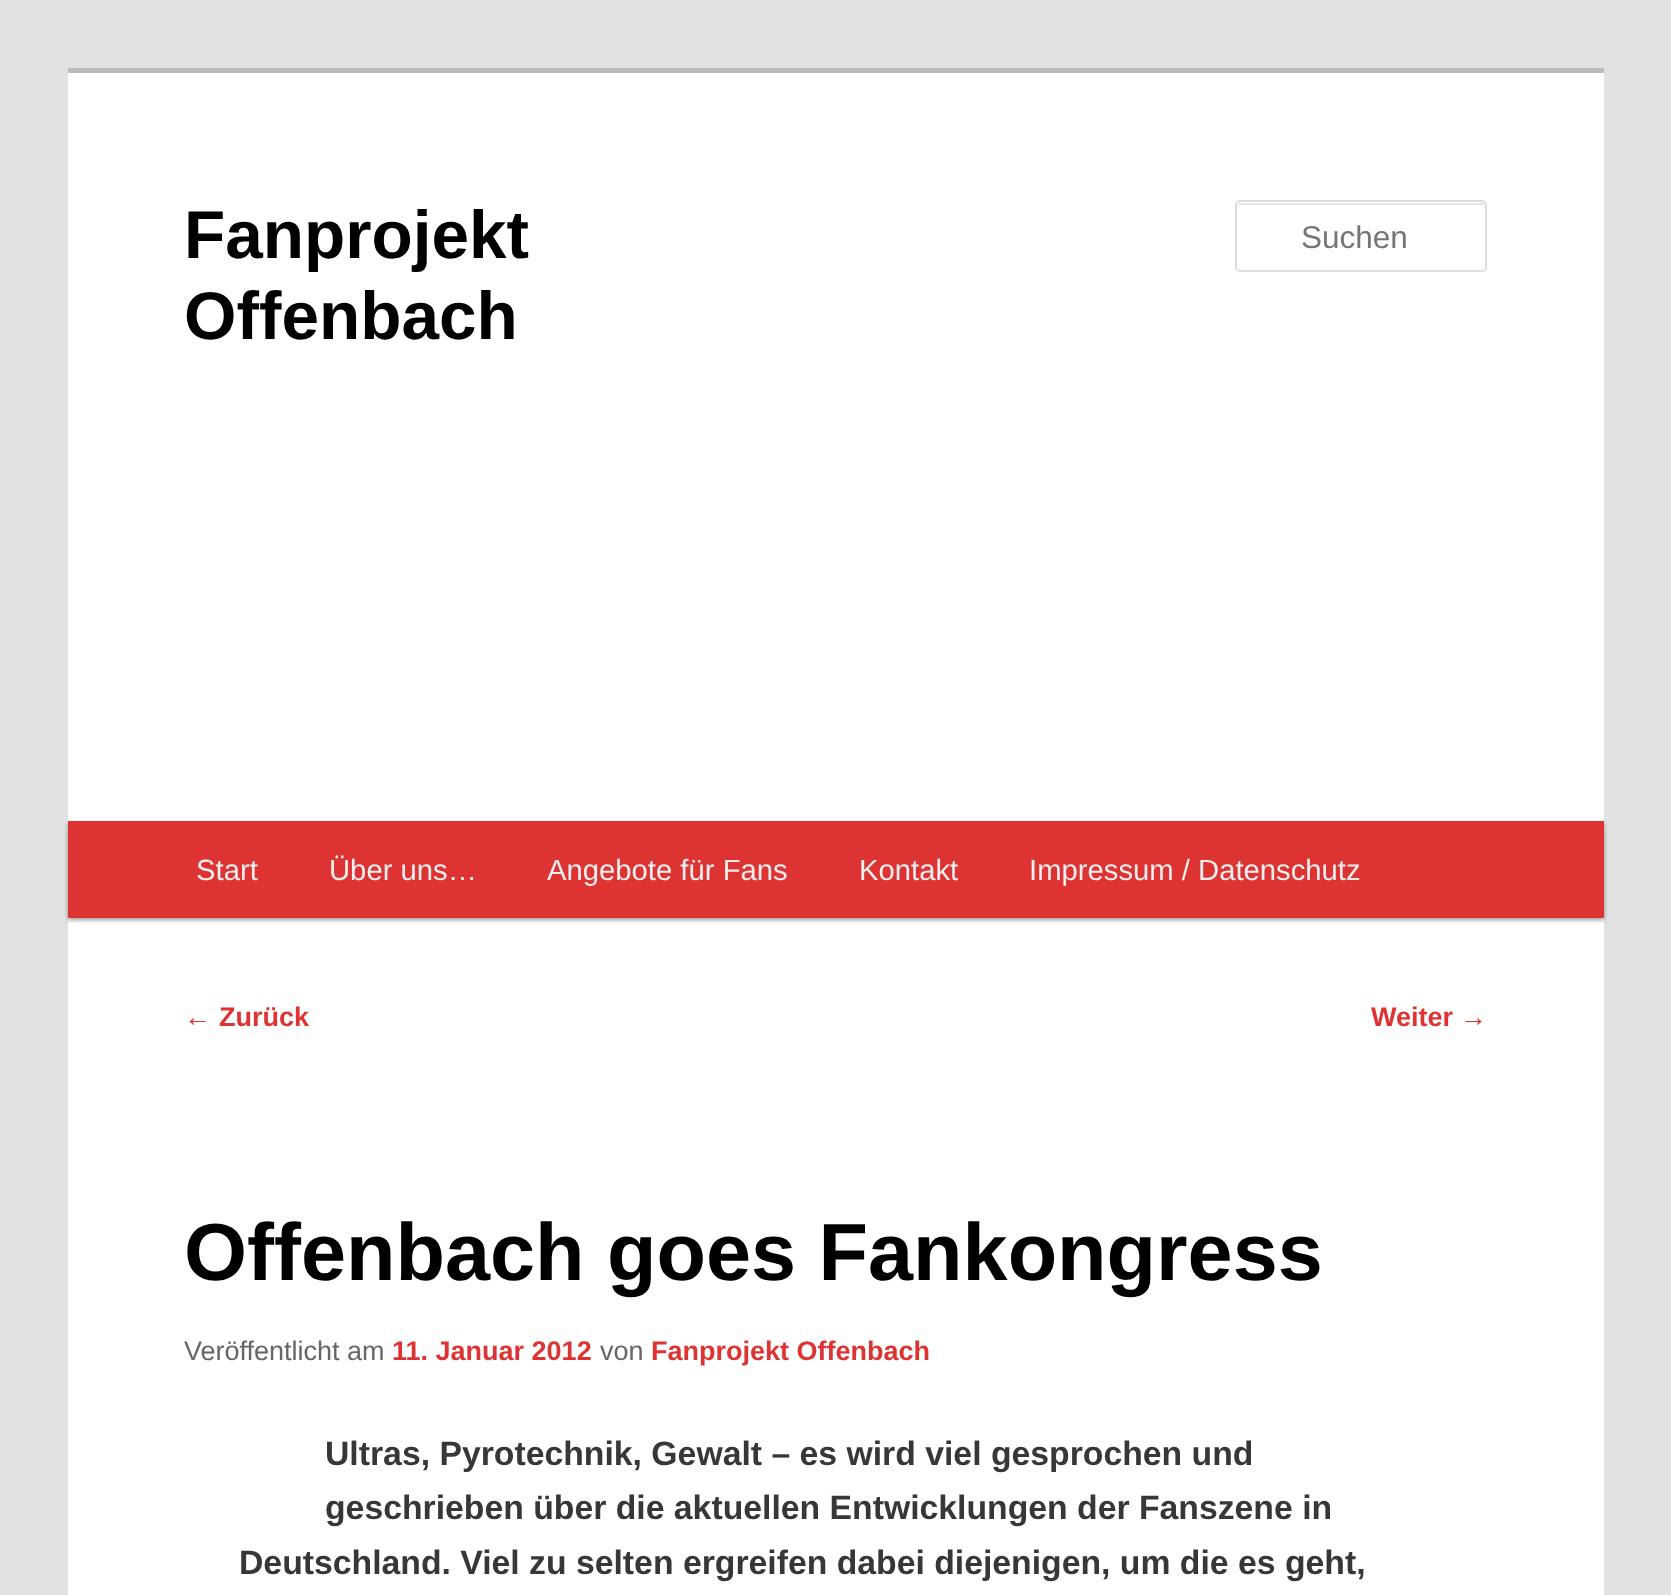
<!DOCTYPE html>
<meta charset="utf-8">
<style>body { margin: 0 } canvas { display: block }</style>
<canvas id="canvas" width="1671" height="1595"></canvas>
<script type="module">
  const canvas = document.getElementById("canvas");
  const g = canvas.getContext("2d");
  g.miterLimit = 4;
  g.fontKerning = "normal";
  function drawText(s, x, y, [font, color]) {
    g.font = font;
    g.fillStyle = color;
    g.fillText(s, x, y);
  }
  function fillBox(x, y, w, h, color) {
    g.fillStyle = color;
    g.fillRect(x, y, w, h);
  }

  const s1 = ["bold 67.5px Liberation Sans", "#000000"];
  const s2 = ["31.5px Liberation Sans", "#757575"];
  const s3 = ["29.25px Liberation Sans", "#EEEEEE"];
  const s4 = ["27px Liberation Sans", "#DD3333"];
  const s5 = ["bold 27px Liberation Sans", "#DD3333"];
  const s6 = ["bold 81px Liberation Sans", "#000000"];
  const s7 = ["27px Liberation Sans", "#666666"];
  const s8 = ["bold 33.75px Liberation Sans", "#373737"];

  fillBox(0, 0, 1671, 1595, "#E2E2E2");
  fillBox(68, 73, 1536, 1522, "#FFFFFF");
  fillBox(68, 68, 1536, 5, "#BBBBBB");
  drawText("Fanprojekt", 184, 258, s1);
  drawText("Offenbach", 184, 339, s1);
  g.fillStyle = "#E6E6E6";
  g.beginPath();
  g.moveTo(1240, 205);
  g.lineTo(1483, 205);
  g.bezierCurveTo(1484, 205, 1485, 206, 1485, 207);
  g.bezierCurveTo(1485, 205, 1485, 203, 1483, 203);
  g.lineTo(1240, 203);
  g.bezierCurveTo(1238, 203, 1238, 205, 1238, 207);
  g.bezierCurveTo(1238, 206, 1239, 205, 1240, 205);
  g.closePath();
  g.fill();
  g.beginPath();
  g.roundRect(1236, 201, 250, 70, 4);
  g.strokeStyle = "#DDDDDD";
  g.lineWidth = 2;
  g.stroke();
  drawText("Suchen", 1301, 248, s2);
  g.fillStyle = "rgba(0, 0, 0, 0.4)";
  g.filter = "blur(2px)";
  g.beginPath();
  g.rect(68, 824, 1536, 96);
  g.fill();
  g.filter = "none";
  fillBox(68, 821, 1536, 97, "#DD3333");
  drawText("Start", 196, 880, s3);
  drawText("Über uns…", 329, 880, s3);
  drawText("Angebote für Fans", 547, 880, s3);
  drawText("Kontakt", 859, 880, s3);
  drawText("Impressum / Datenschutz", 1029, 880, s3);
  drawText("←", 184, 1026, s4);
  drawText("Zurück", 219, 1026, s5);
  drawText("Weiter", 1371, 1026, s5);
  drawText("→", 1460, 1026, s4);
  drawText("Offenbach goes Fankongress", 184, 1280, s6);
  drawText("Veröffentlicht am", 184, 1360, s7);
  drawText("11. Januar 2012", 392, 1360, s5);
  drawText("von", 600, 1360, s7);
  drawText("Fanprojekt Offenbach", 651, 1360, s5);
  drawText("Ultras, Pyrotechnik, Gewalt – es wird viel gesprochen und", 325, 1465, s8);
  drawText("geschrieben über die aktuellen Entwicklungen der Fanszene in", 325, 1519, s8);
  drawText("Deutschland. Viel zu selten ergreifen dabei diejenigen, um die es geht,", 239, 1574, s8);
</script>
